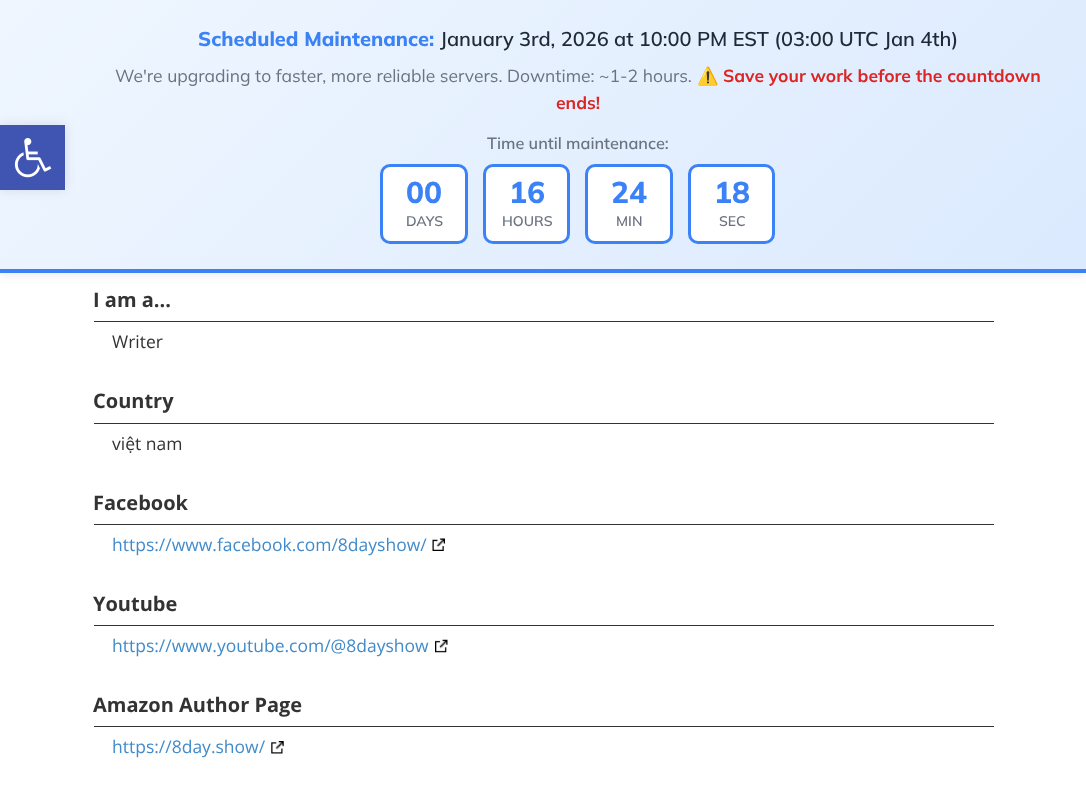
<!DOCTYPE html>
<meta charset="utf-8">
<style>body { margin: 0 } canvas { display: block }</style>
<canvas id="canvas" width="1086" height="791"></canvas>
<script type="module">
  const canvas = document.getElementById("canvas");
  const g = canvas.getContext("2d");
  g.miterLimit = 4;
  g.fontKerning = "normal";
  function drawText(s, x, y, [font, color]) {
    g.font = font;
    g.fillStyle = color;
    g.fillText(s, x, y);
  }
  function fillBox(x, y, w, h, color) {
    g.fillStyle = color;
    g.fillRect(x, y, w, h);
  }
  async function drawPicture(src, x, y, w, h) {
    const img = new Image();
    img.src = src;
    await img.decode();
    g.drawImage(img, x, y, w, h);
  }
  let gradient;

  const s1 = ["800 20px Mulish", "#3B82F6"];
  const s2 = ["600 20px Mulish", "#1F2937"];
  const s3 = ["17.5px Mulish", "#6B7280"];
  const s4 = ["bold 17.5px Noto Color Emoji", "#DC2626"];
  const s5 = ["bold 17.5px Mulish", "#DC2626"];
  const s6 = ["600 16.25px Mulish", "#6B7280"];
  const s7 = ["800 30px Mulish", "#3B82F6"];
  const s8 = ["600 14px Mulish", "#6B7280"];
  const s9 = ["bold 20px Open Sans", "#333333"];
  const s10 = ["17.5px Open Sans", "#333333"];
  const s11 = ["17.5px Open Sans", "#428BCA"];

  fillBox(0, 0, 1086, 791, "#FFFFFF");
  g.fillStyle = "rgba(0, 0, 0, 0.08)";
  g.filter = "blur(5px)";
  g.beginPath();
  g.rect(0, 3, 1086, 272);
  g.fill();
  g.filter = "none";
  gradient = g.createLinearGradient(204, -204, 882, 473);
  gradient.addColorStop(0, "#EFF6FF");
  gradient.addColorStop(1, "#DBEAFE");
  g.fillStyle = gradient;
  g.fillRect(0, 0, 1086, 269);
  g.fillStyle = "rgba(0, 0, 0, 0.1)";
  g.filter = "blur(6px)";
  g.beginPath();
  g.rect(0, 125, 65, 65);
  g.fill();
  g.filter = "none";
  fillBox(0, 125, 65, 65, "#4054B2");
  await drawPicture("pic1.png", 14, 138, 38, 40);
  fillBox(0, 269, 1086, 4, "#3B82F6");
  drawText("Scheduled Maintenance:", 198, 46, s1);
  drawText("January 3rd, 2026 at 10:00 PM EST (03:00 UTC Jan 4th)", 440, 46, s2);
  drawText("We're upgrading to faster, more reliable servers. Downtime: ~1-2 hours.", 115, 82, s3);
  drawText("⚠️", 697, 82, s4);
  drawText("Save your work before the countdown", 723, 82, s5);
  drawText("ends!", 556, 109, s5);
  drawText("Time until maintenance:", 487, 149, s6);
  g.fillStyle = "#FFFFFF";
  g.beginPath();
  g.roundRect(381.5, 165.5, 85, 77, 8.5);
  g.fill();
  g.strokeStyle = "#3B82F6";
  g.lineWidth = 3;
  g.stroke();
  drawText("00", 406, 203, s7);
  drawText("DAYS", 406, 226, s8);
  g.fillStyle = "#FFFFFF";
  g.beginPath();
  g.roundRect(484.5, 165.5, 84, 77, 8.5);
  g.fill();
  g.stroke();
  drawText("16", 509, 203, s7);
  drawText("HOURS", 502, 226, s8);
  g.fillStyle = "#FFFFFF";
  g.beginPath();
  g.roundRect(586.5, 165.5, 85, 77, 8.5);
  g.fill();
  g.stroke();
  drawText("24", 611, 203, s7);
  drawText("MIN", 616, 226, s8);
  g.fillStyle = "#FFFFFF";
  g.beginPath();
  g.roundRect(689.5, 165.5, 84, 77, 8.5);
  g.fill();
  g.stroke();
  drawText("18", 714, 203, s7);
  drawText("SEC", 719, 226, s8);
  fillBox(94, 321, 900, 1, "#333333");
  drawText("I am a...", 93, 307, s9);
  drawText("Writer", 112, 348, s10);
  fillBox(94, 423, 900, 1, "#333333");
  drawText("Country", 93, 408, s9);
  drawText("việt nam", 112, 450, s10);
  fillBox(94, 524, 900, 1, "#333333");
  drawText("Facebook", 93, 510, s9);
  drawText("https://www.facebook.com/8dayshow/", 112, 551, s11);
  await drawPicture("pic2.png", 432, 538, 13, 13);
  fillBox(94, 625, 900, 1, "#333333");
  drawText("Youtube", 93, 611, s9);
  drawText("https://www.youtube.com/@8dayshow", 112, 652, s11);
  await drawPicture("pic3.png", 435, 639, 13, 14);
  fillBox(94, 726, 900, 1, "#333333");
  drawText("Amazon Author Page", 93, 712, s9);
  drawText("https://8day.show/", 112, 753, s11);
  await drawPicture("pic4.png", 271, 741, 13, 13);
</script>
